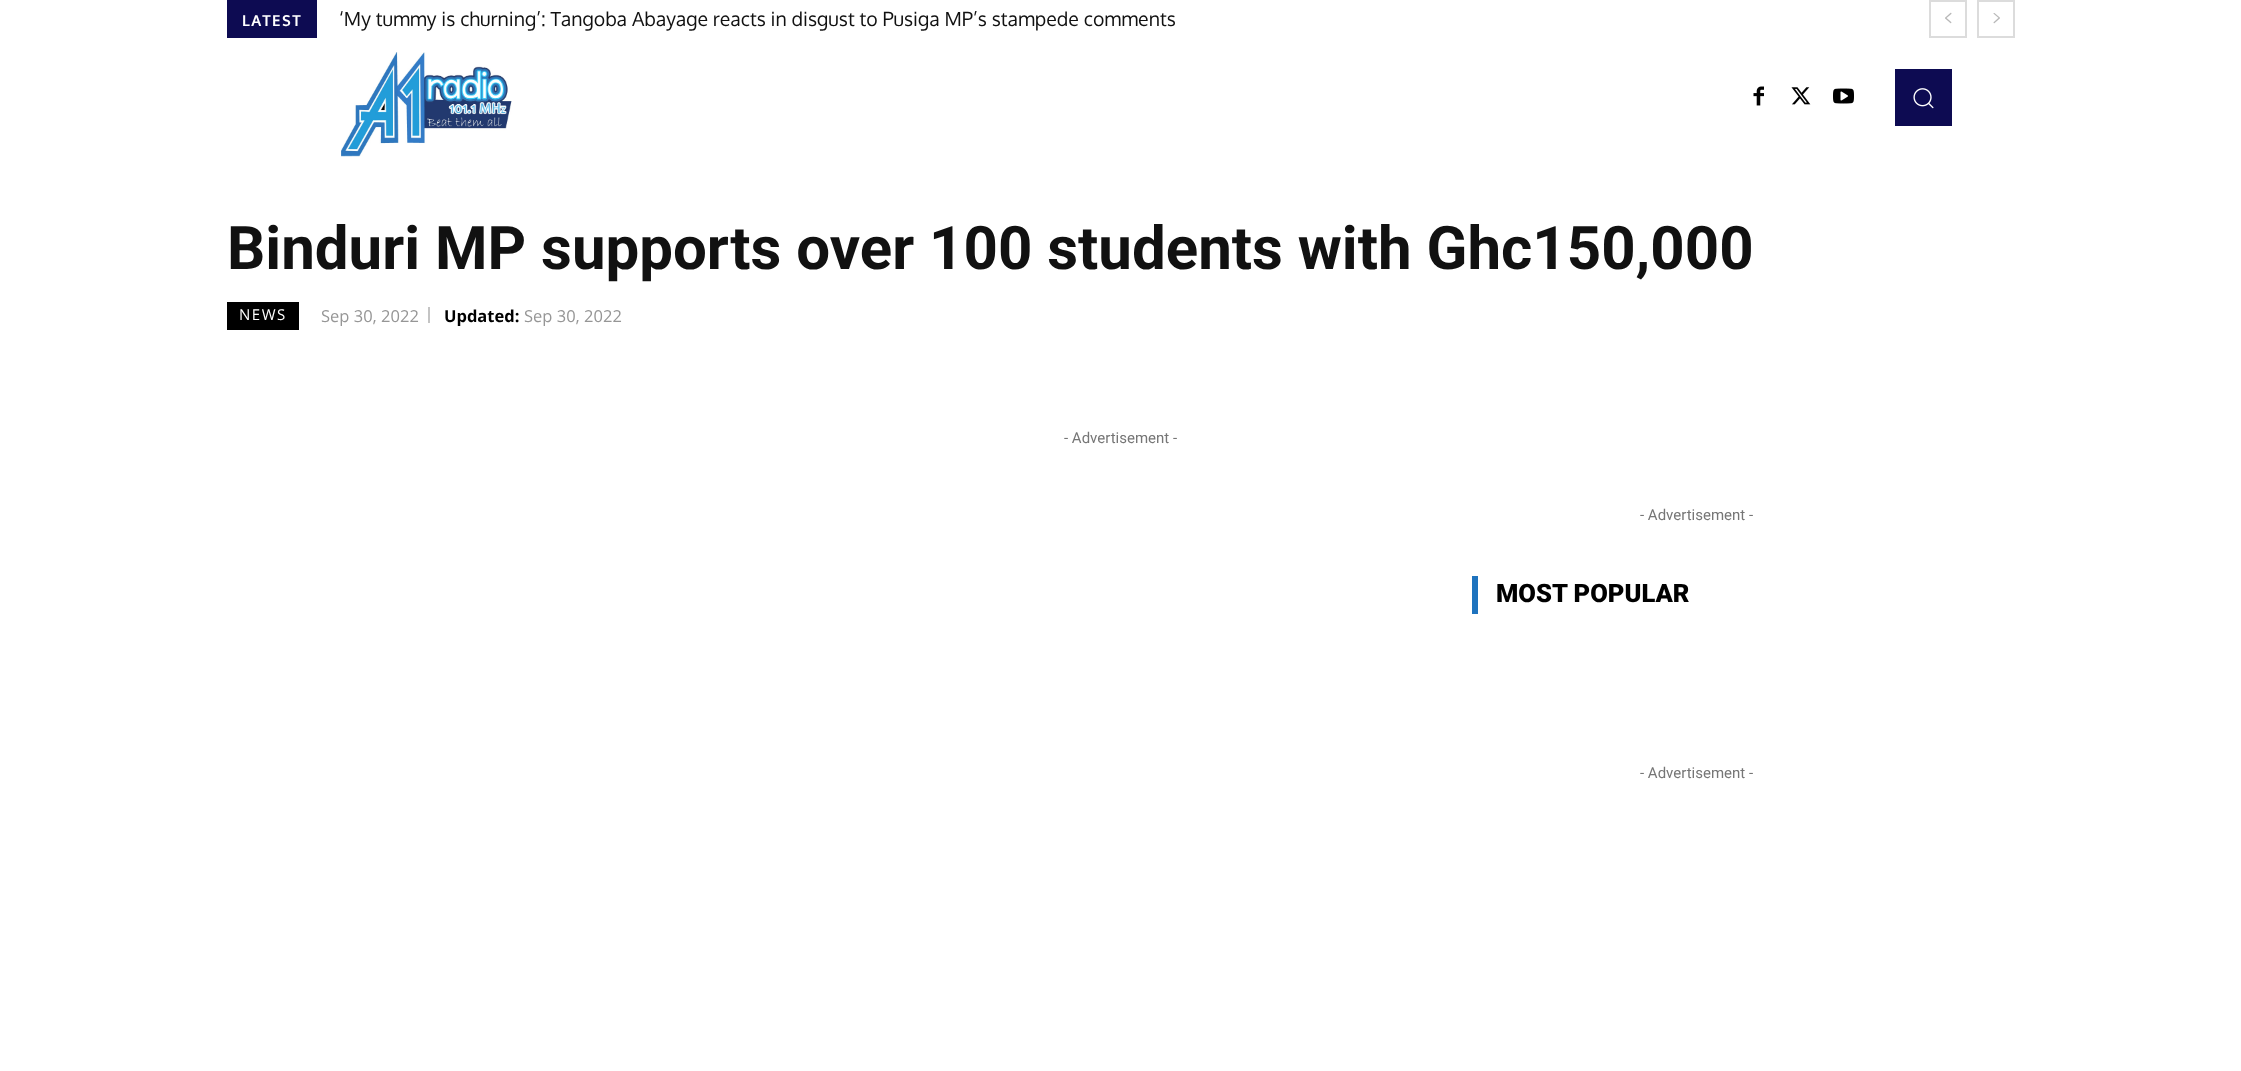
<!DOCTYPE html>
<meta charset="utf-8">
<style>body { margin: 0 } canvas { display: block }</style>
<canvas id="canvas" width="2241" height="1071"></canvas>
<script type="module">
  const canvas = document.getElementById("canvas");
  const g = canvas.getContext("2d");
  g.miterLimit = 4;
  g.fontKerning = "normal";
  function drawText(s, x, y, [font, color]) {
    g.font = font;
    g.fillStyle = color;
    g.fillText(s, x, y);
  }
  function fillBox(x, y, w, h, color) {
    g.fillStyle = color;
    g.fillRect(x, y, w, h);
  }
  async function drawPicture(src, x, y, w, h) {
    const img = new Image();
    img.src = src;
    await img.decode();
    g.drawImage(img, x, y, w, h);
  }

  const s1 = ["bold 15px Oxygen", "#FFFFFF"];
  const s2 = ["19.5px Oxygen", "#111111"];
  const s3 = ["bold 60px Roboto", "#111111"];
  const s4 = ["15px Open Sans", "#FFFFFF"];
  const s5 = ["16.5px Open Sans", "#969696"];
  const s6 = ["bold 16.5px Open Sans", "#000000"];
  const s7 = ["15px Roboto", "#767676"];
  const s8 = ["900 25.5px Roboto", "#000000"];

  fillBox(0, 0, 2241, 1071, "#FFFFFF");
  fillBox(227, 0, 90, 38, "#0D0B52");
  g.letterSpacing = "1.5px";
  drawText("LATEST", 242, 26, s1);
  g.letterSpacing = "0px";
  drawText("‘My tummy is churning’: Tangoba Abayage reacts in disgust to Pusiga MP’s stampede comments", 339, 26, s2);
  g.strokeStyle = "#DCDCDC";
  g.lineWidth = 2;
  g.strokeRect(1930, 1, 36, 36);
  await drawPicture("pic1.png", 1945, 12, 7, 12);
  g.strokeRect(1978, 1, 36, 36);
  await drawPicture("pic2.png", 1993, 13, 7, 11);
  await drawPicture("pic3.png", 341, 52, 171, 105);
  await drawPicture("pic4.png", 1753, 86, 11, 20);
  await drawPicture("pic5.png", 1791, 87, 20, 18);
  await drawPicture("pic6.png", 1833, 88, 21, 16);
  fillBox(1895, 69, 57, 57, "#0D0B52");
  await drawPicture("pic7.png", 1913, 88, 21, 21);
  drawText("Binduri MP supports over 100 students with Ghc150,000", 227, 269, s3);
  fillBox(227, 302, 72, 28, "#000000");
  g.letterSpacing = "1.5px";
  drawText("NEWS", 239, 320, s4);
  g.letterSpacing = "0px";
  drawText("Sep 30, 2022", 321, 322, s5);
  fillBox(428, 307, 2, 16, "#C4C4C4");
  drawText("Updated:", 444, 322, s6);
  drawText("Sep 30, 2022", 524, 322, s5);
  drawText("- Advertisement -", 1064, 443, s7);
  drawText("- Advertisement -", 1640, 520, s7);
  fillBox(1472, 576, 6, 38, "#1E73BE");
  drawText("MOST POPULAR", 1496, 602, s8);
  drawText("- Advertisement -", 1640, 778, s7);
</script>
